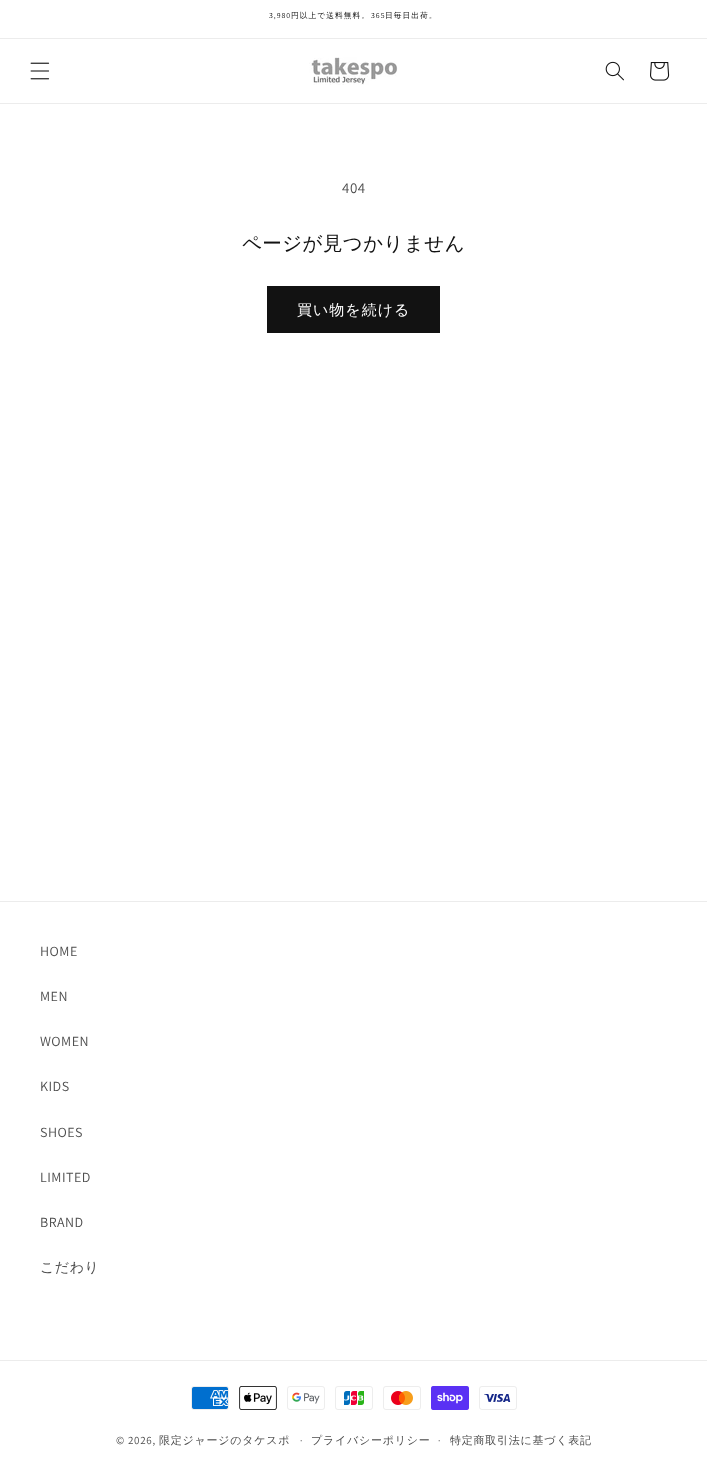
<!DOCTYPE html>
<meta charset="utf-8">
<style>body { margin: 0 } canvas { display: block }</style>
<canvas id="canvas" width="707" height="1483"></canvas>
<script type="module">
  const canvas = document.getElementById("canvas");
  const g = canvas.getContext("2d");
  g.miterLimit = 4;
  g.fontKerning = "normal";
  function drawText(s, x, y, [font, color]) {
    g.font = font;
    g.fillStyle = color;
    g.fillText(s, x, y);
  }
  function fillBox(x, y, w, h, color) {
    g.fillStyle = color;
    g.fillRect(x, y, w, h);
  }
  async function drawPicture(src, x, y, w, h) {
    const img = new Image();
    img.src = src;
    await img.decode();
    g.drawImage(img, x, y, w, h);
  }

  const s1 = ["7.75px Assistant", "#121212"];
  const s2 = ["500 7.75px WenQuanYi Zen Hei", "#121212"];
  const s3 = ["15px Assistant", "#4D4D4D"];
  const s4 = ["500 19.5px WenQuanYi Zen Hei", "#121212"];
  const s5 = ["500 15px WenQuanYi Zen Hei", "#FFFFFF"];
  const s6 = ["14px Assistant", "#4D4D4D"];
  const s7 = ["500 14px WenQuanYi Zen Hei", "#4D4D4D"];
  const s8 = ["11px Assistant", "#4D4D4D"];
  const s9 = ["500 11px WenQuanYi Zen Hei", "#4D4D4D"];
  const s10 = ["10px Assistant", "#4D4D4D"];

  fillBox(0, 0, 707, 1483, "#FFFFFF");
  fillBox(0, 38, 707, 1, "#ECECEC");
  g.letterSpacing = "1px";
  drawText("3,980", 269, 18, s1);
  drawText("円以上で送料無料。", 291, 18, s2);
  drawText("365", 371, 18, s1);
  drawText("日毎日出荷。", 385, 18, s2);
  fillBox(0, 103, 707, 1, "#ECECEC");
  await drawPicture("pic1.png", 30, 62, 20, 18);
  await drawPicture("pic2.png", 309, 57, 89, 28);
  await drawPicture("pic3.png", 605, 61, 19, 20);
  await drawPicture("pic4.png", 650, 62, 20, 19);
  g.letterSpacing = "0.5px";
  drawText("404", 342, 193, s3);
  g.letterSpacing = "0.4px";
  drawText("ページが見つかりません", 242, 250, s4);
  fillBox(267, 286, 173, 47, "#121212");
  g.letterSpacing = "1px";
  drawText("買い物を続ける", 297, 315, s5);
  fillBox(0, 901, 707, 1, "#ECECEC");
  g.letterSpacing = "0.5px";
  drawText("HOME", 40, 956, s6);
  drawText("MEN", 40, 1001, s6);
  drawText("WOMEN", 40, 1046, s6);
  drawText("KIDS", 40, 1091, s6);
  drawText("SHOES", 40, 1137, s6);
  drawText("LIMITED", 40, 1182, s6);
  drawText("BRAND", 40, 1227, s6);
  drawText("こだわり", 40, 1272, s7);
  fillBox(0, 1360, 707, 1, "#ECECEC");
  await drawPicture("pic5.png", 191, 1386, 38, 24);
  await drawPicture("pic6.png", 239, 1386, 38, 24);
  await drawPicture("pic7.png", 287, 1386, 38, 24);
  await drawPicture("pic8.png", 335, 1386, 38, 24);
  await drawPicture("pic9.png", 383, 1386, 38, 24);
  await drawPicture("pic10.png", 431, 1386, 38, 24);
  await drawPicture("pic11.png", 479, 1386, 38, 24);
  g.letterSpacing = "0.75px";
  drawText("© 2026,", 116, 1444, s8);
  drawText("限定ジャージのタケスポ", 159, 1444, s9);
  drawText("·", 300, 1444, s10);
  drawText("プライバシーポリシー", 311, 1444, s9);
  drawText("·", 438, 1444, s10);
  drawText("特定商取引法に基づく表記", 450, 1444, s9);
</script>
